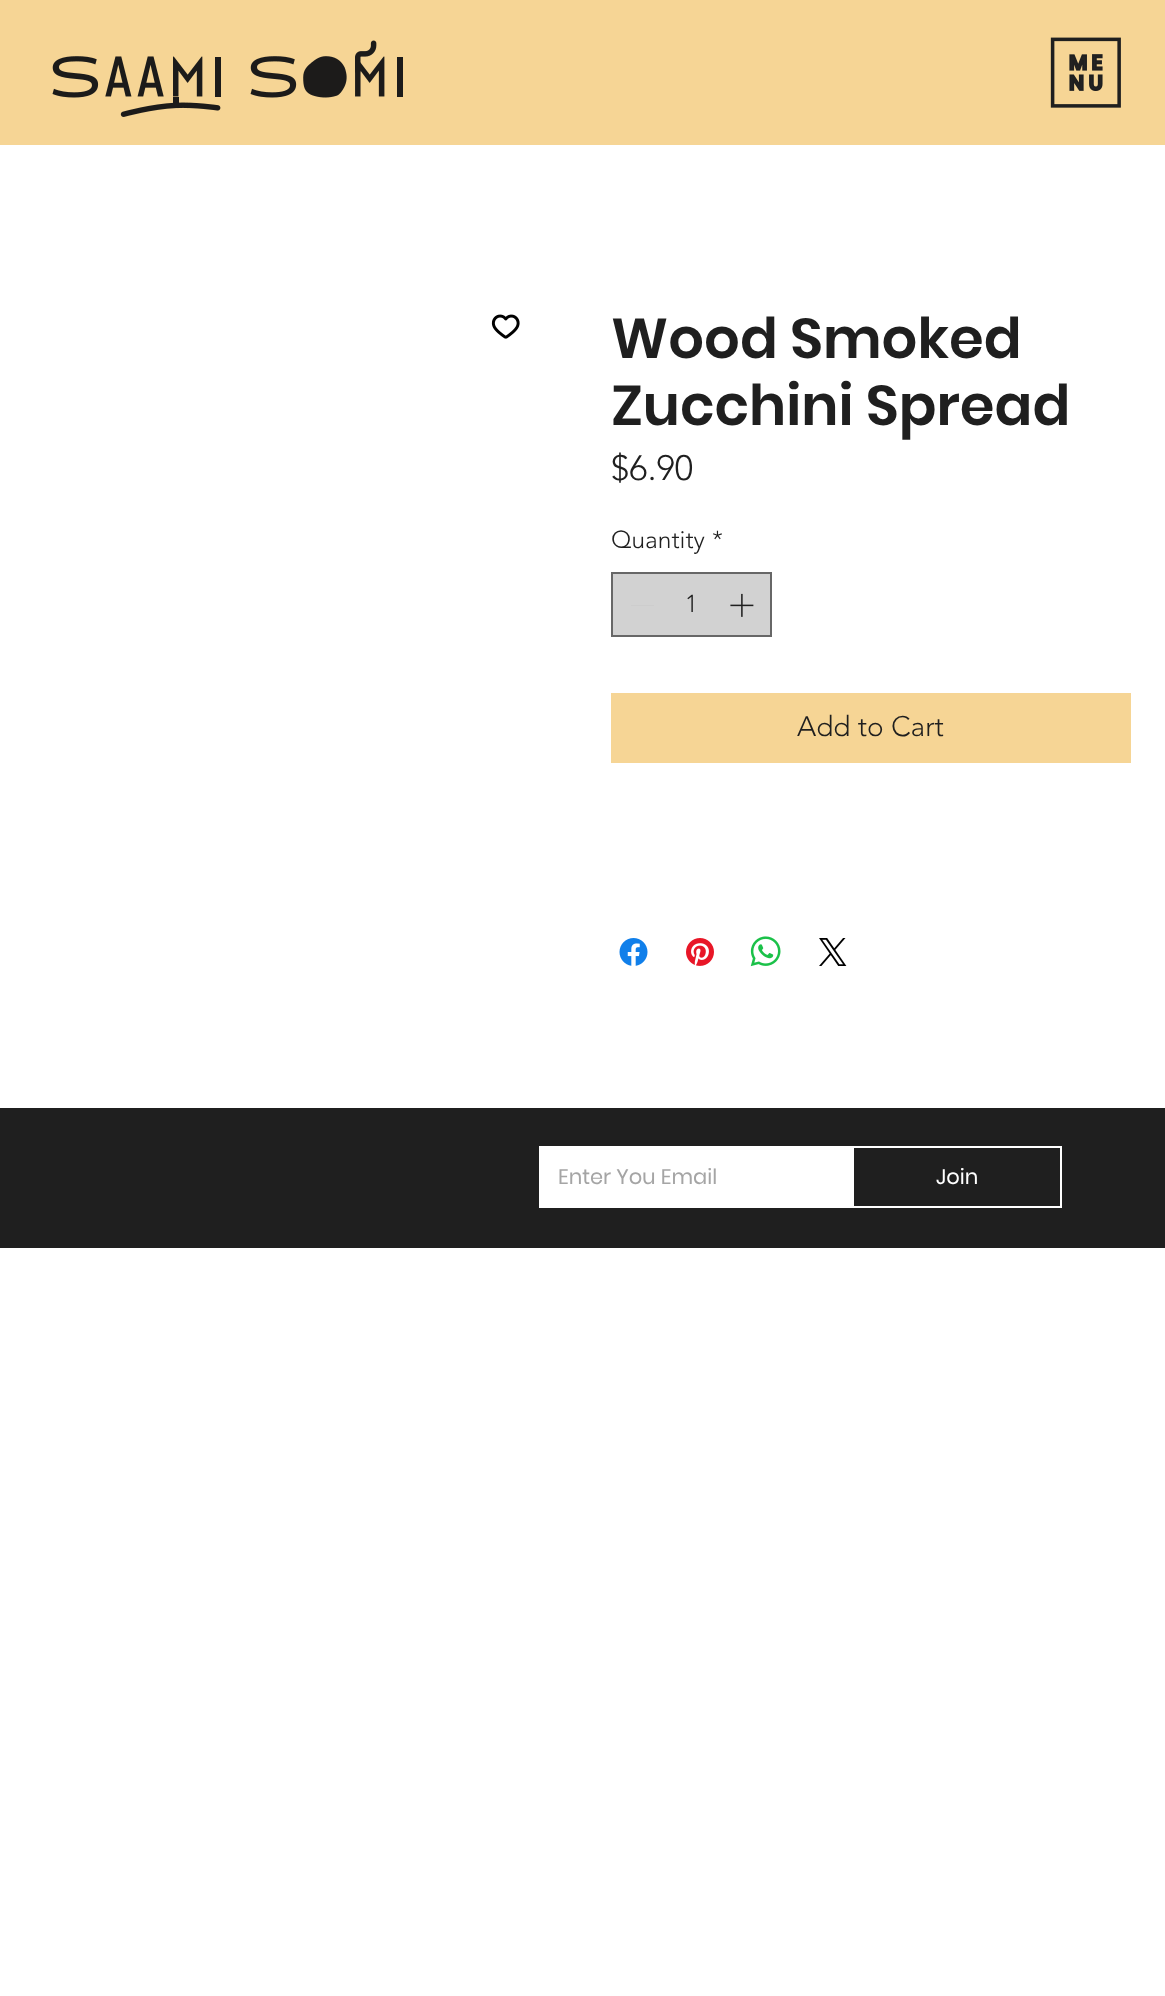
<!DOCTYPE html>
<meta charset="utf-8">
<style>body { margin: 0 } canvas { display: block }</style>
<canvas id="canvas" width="1165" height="1996"></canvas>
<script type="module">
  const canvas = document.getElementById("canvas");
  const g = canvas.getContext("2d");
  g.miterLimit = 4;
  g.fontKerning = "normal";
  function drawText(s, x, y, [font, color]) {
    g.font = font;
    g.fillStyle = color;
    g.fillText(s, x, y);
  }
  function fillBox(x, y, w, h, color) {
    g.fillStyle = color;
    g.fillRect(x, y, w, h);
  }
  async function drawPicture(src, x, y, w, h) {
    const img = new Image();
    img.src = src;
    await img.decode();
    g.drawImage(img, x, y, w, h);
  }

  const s1 = ["600 56px Poppins", "#1F1F1F"];
  const s2 = ["300 35px 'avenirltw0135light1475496'", "#1F1F1F"];
  const s3 = ["300 24.5px 'avenirltw0135light1475496'", "#1F1F1F"];
  const s4 = ["300 28px 'avenirltw0135light1475496'", "#1F1F1F"];
  const s5 = ["21px Poppins", "#A5A5A5"];
  const s6 = ["21px Poppins", "#FFFFFF"];

  fillBox(0, 0, 1165, 1996, "#FFFFFF");
  fillBox(0, 0, 1165, 145, "#F6D595");
  await drawPicture("pic1.png", 52, 40, 351, 77);
  await drawPicture("pic2.png", 1050, 37, 71, 71);
  await drawPicture("pic3.png", 491, 314, 29, 25);
  drawText("Wood Smoked", 611, 358, s1);
  drawText("Zucchini Spread", 611, 425, s1);
  drawText("$6.90", 611, 480, s2);
  drawText("Quantity", 611, 548, s3);
  drawText("*", 712, 548, s3);
  g.fillStyle = "#D2D2D2";
  g.beginPath();
  g.rect(612, 573, 159, 63);
  g.fill();
  g.strokeStyle = "#676767";
  g.lineWidth = 2;
  g.stroke();
  fillBox(631, 605, 23, 1, "#CDCDCD");
  drawText("1", 685, 612, s3);
  await drawPicture("pic4.png", 730, 593, 24, 24);
  fillBox(611, 693, 520, 70, "#F6D595");
  drawText("Add to Cart", 797, 736, s4);
  await drawPicture("pic5.png", 619, 938, 29, 28);
  await drawPicture("pic6.png", 686, 938, 28, 28);
  await drawPicture("pic7.png", 750, 936, 31, 31);
  await drawPicture("pic8.png", 819, 938, 28, 28);
  fillBox(0, 1108, 1165, 140, "#1F1F1F");
  fillBox(539, 1146, 313, 62, "#FFFFFF");
  drawText("Enter You Email", 558, 1184, s5);
  g.strokeStyle = "#FFFFFF";
  g.strokeRect(853, 1147, 208, 60);
  drawText("Join", 936, 1184, s6);
</script>
